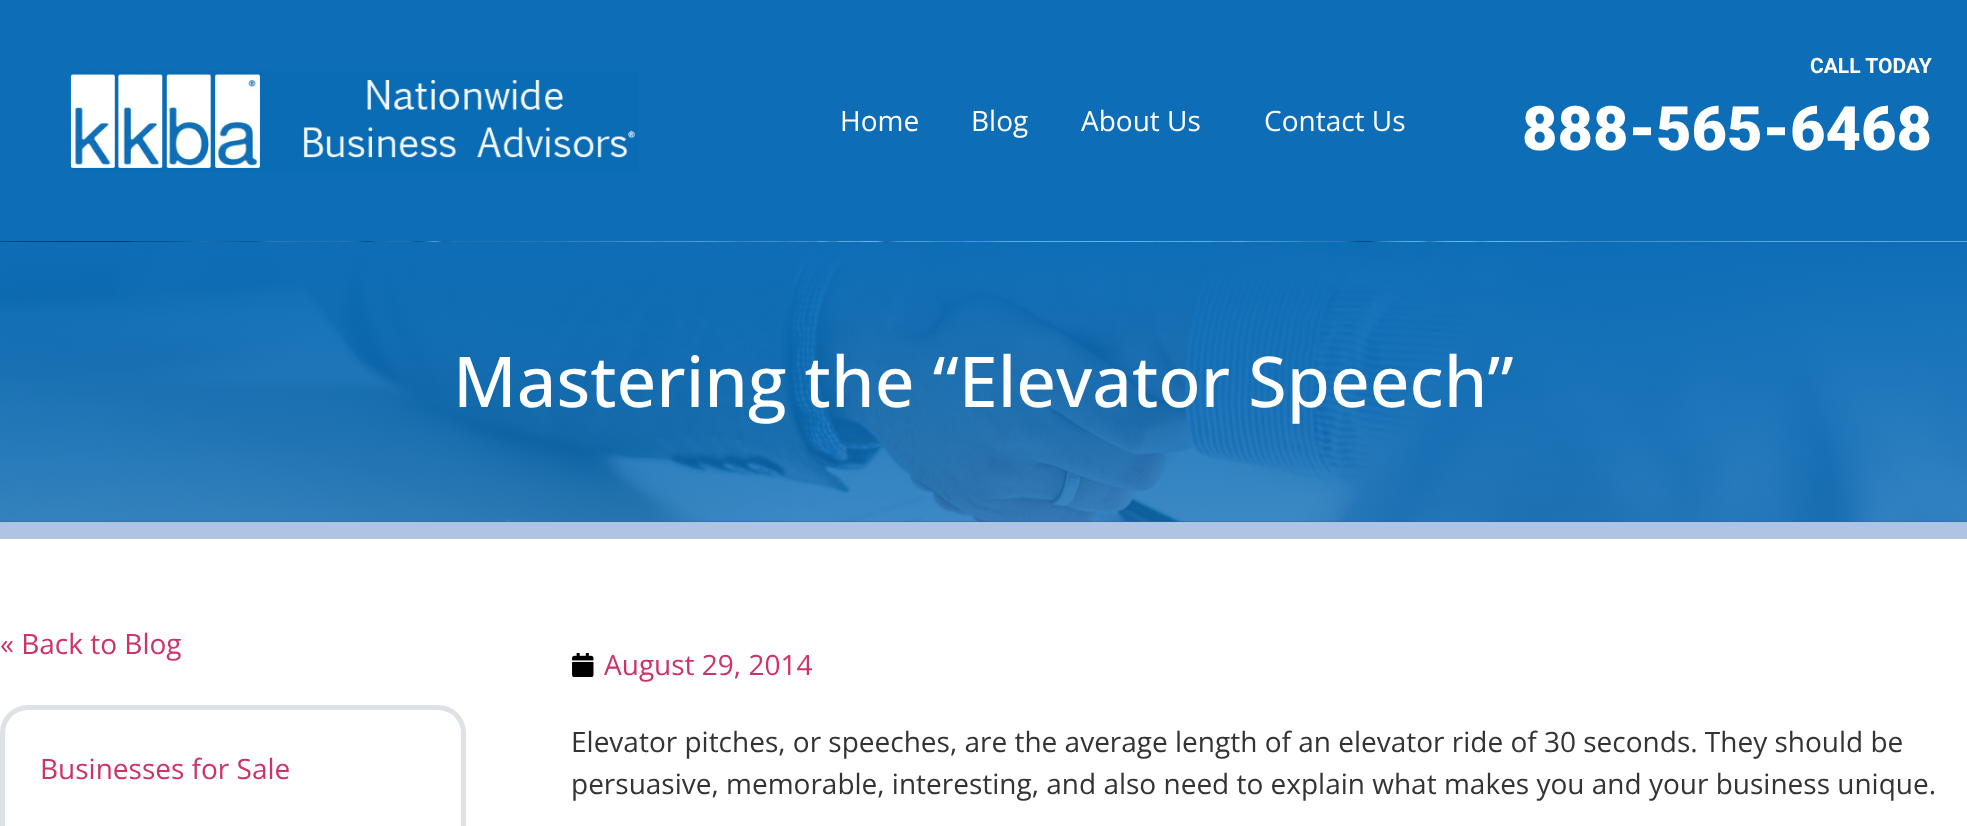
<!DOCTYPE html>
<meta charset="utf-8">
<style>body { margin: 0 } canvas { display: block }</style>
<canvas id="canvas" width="1967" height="826"></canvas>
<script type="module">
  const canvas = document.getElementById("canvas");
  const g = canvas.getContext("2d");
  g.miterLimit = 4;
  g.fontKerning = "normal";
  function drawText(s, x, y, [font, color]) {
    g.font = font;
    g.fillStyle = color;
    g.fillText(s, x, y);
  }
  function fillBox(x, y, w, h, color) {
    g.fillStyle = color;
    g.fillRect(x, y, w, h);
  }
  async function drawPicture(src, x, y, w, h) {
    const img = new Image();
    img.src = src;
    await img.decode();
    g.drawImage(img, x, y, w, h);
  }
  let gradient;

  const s1 = ["28px Open Sans", "#FFFFFF"];
  const s2 = ["bold 21px Roboto", "#FFFFFF"];
  const s3 = ["900 61.25px Roboto", "#FFFFFF"];
  const s4 = ["500 70px Open Sans", "#FFFFFF"];
  const s5 = ["28px Open Sans", "#CC3366"];
  const s6 = ["28px Open Sans", "#333333"];

  fillBox(0, 0, 1967, 826, "#FFFFFF");
  fillBox(0, 0, 1967, 242, "#0D6DB6");
  await drawPicture("pic1.png", 70, 71, 568, 101);
  drawText("Home", 840, 131, s1);
  drawText("Blog", 971, 131, s1);
  drawText("About Us", 1081, 131, s1);
  drawText("Contact Us", 1264, 131, s1);
  drawText("CALL TODAY", 1810, 73, s2);
  drawText("888-565-6468", 1522, 150, s3);
  fillBox(0, 521, 1967, 1, "#0D6DB6");
  await drawPicture("pic2.png", 0, 241, 1967, 281);
  gradient = g.createLinearGradient(984, 241, 984, 522);
  gradient.addColorStop(0, "#0D6DB6");
  gradient.addColorStop(1, "rgba(13, 109, 182, 0.8)");
  g.fillStyle = gradient;
  g.fillRect(0, 242, 1967, 280);
  drawText("Mastering the “Elevator Speech”", 453, 407, s4);
  fillBox(0, 522, 1967, 17, "#B0C3E0");
  drawText("« Back to Blog", 0, 654, s5);
  g.beginPath();
  g.roundRect(2.5, 707.5, 461, 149, 25.5);
  g.strokeStyle = "#DEE2E6";
  g.lineWidth = 5;
  g.stroke();
  drawText("Businesses for Sale", 40, 779, s5);
  await drawPicture("pic3.png", 572, 653, 22, 24);
  drawText("August 29, 2014", 604, 675, s5);
  drawText("Elevator pitches, or speeches, are the average length of an elevator ride of 30 seconds. They should be", 571, 752, s6);
  drawText("persuasive, memorable, interesting, and also need to explain what makes you and your business unique.", 571, 794, s6);
</script>
